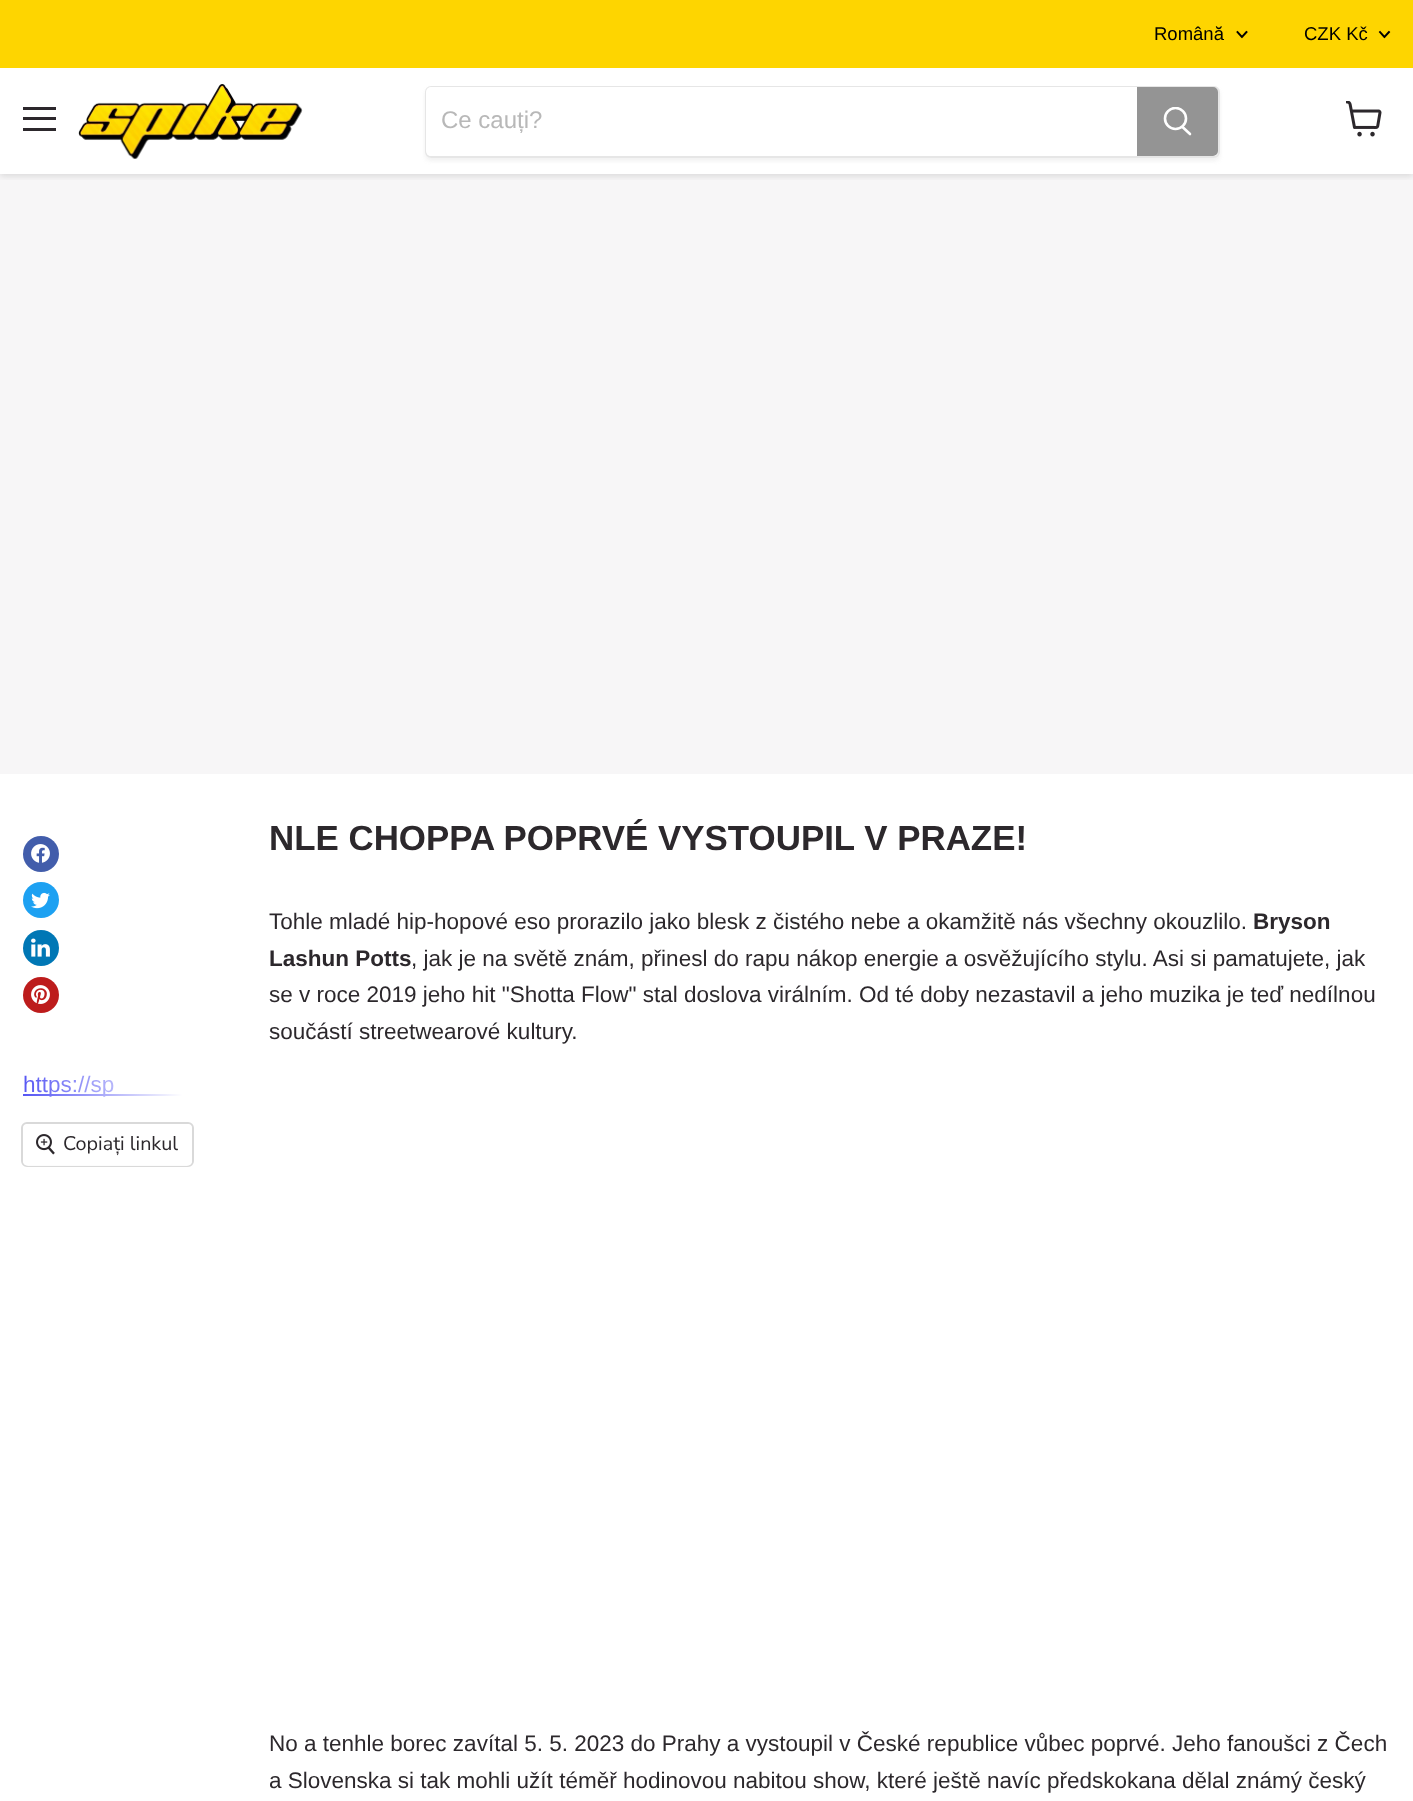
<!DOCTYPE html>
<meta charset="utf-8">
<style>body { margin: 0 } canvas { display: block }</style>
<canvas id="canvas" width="1413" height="1801"></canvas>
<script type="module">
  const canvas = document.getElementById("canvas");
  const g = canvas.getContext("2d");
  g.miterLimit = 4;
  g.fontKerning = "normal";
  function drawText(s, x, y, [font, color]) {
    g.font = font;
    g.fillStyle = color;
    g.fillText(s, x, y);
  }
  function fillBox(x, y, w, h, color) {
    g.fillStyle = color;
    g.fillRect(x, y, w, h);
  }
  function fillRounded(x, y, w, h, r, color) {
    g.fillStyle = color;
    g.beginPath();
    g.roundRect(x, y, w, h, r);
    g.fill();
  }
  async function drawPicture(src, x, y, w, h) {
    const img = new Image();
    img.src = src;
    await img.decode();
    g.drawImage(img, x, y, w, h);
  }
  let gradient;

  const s1 = ["18.5px Liberation Sans", "#000000"];
  const s2 = ["24px Liberation Sans", "#B8B8B8"];
  const s3 = ["22.5px Liberation Sans", "#0000EE"];
  const s4 = ["19.75px Nunito Sans", "#2C282C"];
  const s5 = ["bold 34.9px Liberation Sans", "#2C282C"];
  const s6 = ["22.5px Liberation Sans", "#2C282C"];
  const s7 = ["bold 22.5px Liberation Sans", "#2C282C"];

  fillBox(0, 0, 1413, 1801, "#FFFFFF");
  fillBox(0, 174, 1413, 600, "#F7F6F7");
  g.save();
  g.beginPath();
  g.rect(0, 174, 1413, 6);
  g.clip();
  g.fillStyle = "rgba(128, 128, 128, 0.25)";
  g.filter = "blur(3px)";
  g.beginPath();
  g.rect(0, 71, 1413, 105);
  g.fill();
  g.filter = "none";
  g.restore();
  fillBox(0, 0, 1413, 68, "#FED500");
  fillBox(0, 68, 1413, 1, "#FFFFFF");
  drawText("Română", 1154, 40, s1);
  g.beginPath();
  g.moveTo(1242, 37);
  g.lineTo(1246.5, 32);
  g.moveTo(1242, 37);
  g.lineTo(1237.5, 32);
  g.strokeStyle = "#000000";
  g.lineWidth = 1.9;
  g.lineCap = "square";
  g.stroke();
  drawText("CZK Kč", 1304, 40, s1);
  g.beginPath();
  g.moveTo(1384.5, 37);
  g.lineTo(1389, 32);
  g.moveTo(1384.5, 37);
  g.lineTo(1380, 32);
  g.stroke();
  fillBox(23, 107, 33, 3, "#2C282C");
  fillBox(23, 117, 33, 3, "#2C282C");
  fillBox(23, 128, 33, 3, "#2C282C");
  await drawPicture("pic1.png", 78, 84, 225, 75);
  g.save();
  g.beginPath();
  g.moveTo(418, 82);
  g.lineTo(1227, 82);
  g.lineTo(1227, 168);
  g.lineTo(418, 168);
  g.closePath();
  g.moveTo(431, 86);
  g.lineTo(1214, 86);
  g.bezierCurveTo(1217.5, 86, 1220, 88.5, 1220, 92);
  g.lineTo(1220, 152);
  g.bezierCurveTo(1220, 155.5, 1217.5, 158, 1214, 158);
  g.lineTo(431, 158);
  g.bezierCurveTo(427.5, 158, 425, 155.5, 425, 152);
  g.lineTo(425, 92);
  g.bezierCurveTo(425, 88.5, 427.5, 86, 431, 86);
  g.closePath();
  g.clip("evenodd");
  g.fillStyle = "rgba(128, 128, 128, 0.11)";
  g.filter = "blur(2px)";
  g.beginPath();
  g.roundRect(425, 89, 795, 72, 6);
  g.fill();
  g.filter = "none";
  g.restore();
  g.beginPath();
  g.roundRect(426, 87, 793, 70, 5);
  g.strokeStyle = "rgba(128, 128, 128, 0.2)";
  g.lineWidth = 2;
  g.stroke();
  g.fillStyle = "#FFFFFF";
  g.beginPath();
  g.roundRect(426, 87, 711, 69, [5, 0, 0, 5]);
  g.fill();
  drawText("Ce cauți?", 441, 128, s2);
  g.fillStyle = "#949494";
  g.beginPath();
  g.roundRect(1138, 88, 79, 67, [0, 4, 4, 0]);
  g.fill();
  g.strokeStyle = "#949494";
  g.stroke();
  g.beginPath();
  g.moveTo(1190, 134);
  g.lineTo(1182.5, 127);
  g.strokeStyle = "#FFFFFF";
  g.lineWidth = 2.6;
  g.lineCap = "round";
  g.stroke();
  g.save();
  g.beginPath();
  g.rect(1163, 107, 30, 31);
  g.clip();
  g.beginPath();
  g.arc(1175.5, 118.5, 10.5, 0, Math.PI * 2);
  g.stroke();
  g.restore();
  await drawPicture("pic2.png", 1346, 101, 36, 36);
  g.fillStyle = "#425DAB";
  g.beginPath();
  g.arc(41, 854, 18, 0, Math.PI * 2);
  g.fill();
  await drawPicture("pic3.png", 31, 844, 19, 19);
  g.fillStyle = "#1DA1F2";
  g.beginPath();
  g.arc(41, 900, 18, 0, Math.PI * 2);
  g.fill();
  await drawPicture("pic4.png", 31, 892, 19, 17);
  g.fillStyle = "#0077B5";
  g.beginPath();
  g.arc(41, 948, 18, 0, Math.PI * 2);
  g.fill();
  await drawPicture("pic5.png", 31, 938, 19, 19);
  g.fillStyle = "#BD1C1C";
  g.beginPath();
  g.arc(41, 995, 18, 0, Math.PI * 2);
  g.fill();
  await drawPicture("pic6.png", 31, 985, 19, 19);
  fillBox(23, 1094, 159, 2, "#0000EE");
  drawText("https://sp", 23, 1092, s3);
  gradient = g.createLinearGradient(-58, 1084, 182, 1084);
  gradient.addColorStop(0, "rgba(255, 255, 255, 0)");
  gradient.addColorStop(1, "#FFFFFF");
  g.fillStyle = gradient;
  g.fillRect(23, 1075, 159, 22);
  g.beginPath();
  g.roundRect(22, 1123, 171, 43, 5);
  g.strokeStyle = "#D9D9D9";
  g.lineWidth = 2;
  g.stroke();
  fillRounded(23, 1124, 169, 42, 5, "rgba(255, 255, 255, 0.9)");
  await drawPicture("pic7.png", 36, 1134, 19, 21);
  drawText("Copiați linkul", 63, 1150, s4);
  drawText("NLE CHOPPA POPRVÉ VYSTOUPIL V PRAZE!", 269, 850, s5);
  drawText("Tohle mladé hip-hopové eso prorazilo jako blesk z čistého nebe a okamžitě nás všechny okouzlilo.", 269, 929, s6);
  drawText("Bryson", 1253, 929, s7);
  drawText("Lashun Potts", 269, 966, s7);
  drawText(", jak je na světě znám, přinesl do rapu nákop energie a osvěžujícího stylu. Asi si pamatujete, jak", 411, 966, s6);
  drawText("se v roce 2019 jeho hit \"Shotta Flow\" stal doslova virálním. Od té doby nezastavil a jeho muzika je teď nedílnou", 269, 1002, s6);
  drawText("součástí streetwearové kultury.", 269, 1039, s6);
  drawText("No a tenhle borec zavítal 5. 5. 2023 do Prahy a vystoupil v České republice vůbec poprvé. Jeho fanoušci z Čech", 269, 1751, s6);
  drawText("a Slovenska si tak mohli užít téměř hodinovou nabitou show, které ještě navíc předskokana dělal známý český", 269, 1788, s6);
</script>
